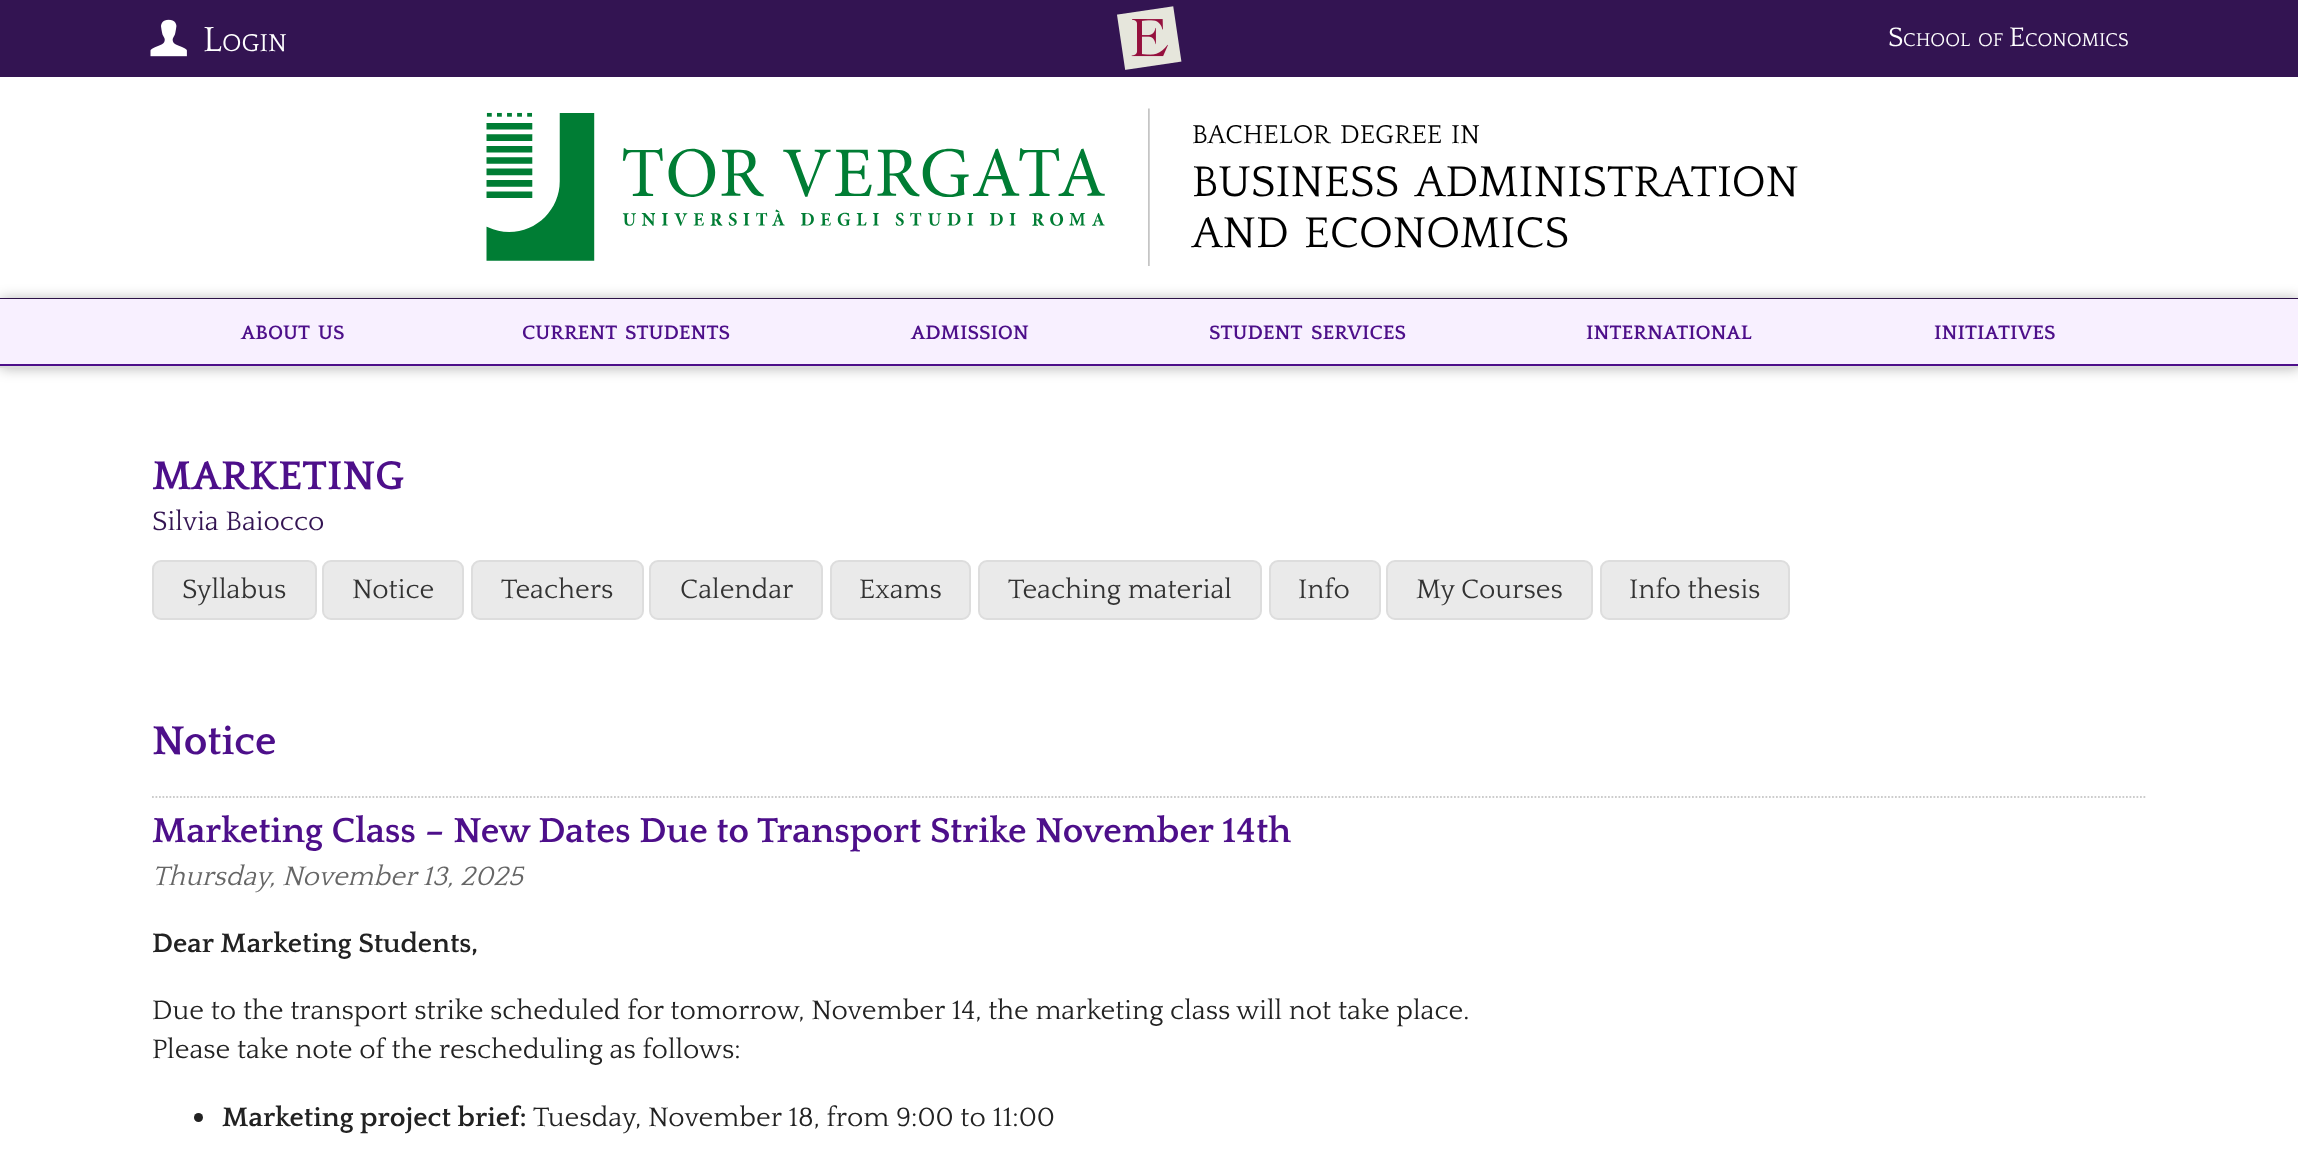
<!DOCTYPE html>
<meta charset="utf-8">
<style>body { margin: 0 } canvas { display: block }</style>
<canvas id="canvas" width="2298" height="1153"></canvas>
<script type="module">
  const canvas = document.getElementById("canvas");
  const g = canvas.getContext("2d");
  g.miterLimit = 4;
  g.fontKerning = "normal";
  function drawText(s, x, y, [font, color]) {
    g.font = font;
    g.fillStyle = color;
    g.fillText(s, x, y);
  }
  function fillBox(x, y, w, h, color) {
    g.fillStyle = color;
    g.fillRect(x, y, w, h);
  }
  async function drawPicture(src, x, y, w, h) {
    const img = new Image();
    img.src = src;
    await img.decode();
    g.drawImage(img, x, y, w, h);
  }

  const s1 = ["36.4px Quattrocento", "#FFFFFF"];
  const s2 = ["25.5px Quattrocento", "#FFFFFF"];
  const s3 = ["28px Quattrocento", "#FFFFFF"];
  const s4 = ["19.5px Quattrocento", "#FFFFFF"];
  const s5 = ["27px Quattrocento", "#000000"];
  const s6 = ["45px Quattrocento", "#000000"];
  const s7 = ["bold 20.5px Quattrocento", "#4D0F8A"];
  const s8 = ["bold 42px Quattrocento", "#4D0F8A"];
  const s9 = ["28px Quattrocento", "#331452"];
  const s10 = ["28px Quattrocento", "#333333"];
  const s11 = ["bold 36.4px Quattrocento", "#4D0F8A"];
  const s12 = ["italic 28px Quattrocento", "#666666"];
  const s13 = ["bold 28px Quattrocento", "#222222"];
  const s14 = ["28px Quattrocento", "#222222"];

  fillBox(0, 0, 2298, 1153, "#FFFFFF");
  fillBox(0, 298, 2298, 1, "#331452");
  fillBox(0, 0, 2298, 77, "#331452");
  await drawPicture("pic1.png", 150, 19, 37, 38);
  drawText("L", 203, 51, s1);
  drawText("OGIN", 222, 51, s2);
  await drawPicture("pic2.png", 1117, 6, 65, 64);
  drawText("S", 1888, 46, s3);
  drawText("CHOOL", 1903, 46, s4);
  drawText("OF", 1978, 46, s4);
  drawText("E", 2009, 46, s3);
  drawText("CONOMICS", 2025, 46, s4);
  await drawPicture("pic3.png", 1148, 108, 2, 158);
  await drawPicture("pic4.png", 486, 112, 619, 149);
  drawText("BACHELOR", 1192, 143, s5);
  drawText("DEGREE", 1340, 143, s5);
  drawText("IN", 1451, 143, s5);
  drawText("BUSINESS", 1192, 196, s6);
  drawText("ADMINISTRATION", 1415, 196, s6);
  drawText("AND", 1192, 247, s6);
  drawText("ECONOMICS", 1304, 247, s6);
  fillBox(0, 299, 2298, 65, "#E6CCFF");
  g.save();
  g.beginPath();
  g.moveTo(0, 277);
  g.lineTo(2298, 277);
  g.lineTo(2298, 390);
  g.lineTo(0, 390);
  g.closePath();
  g.moveTo(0, 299);
  g.lineTo(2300, 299);
  g.lineTo(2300, 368);
  g.lineTo(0, 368);
  g.closePath();
  g.clip("evenodd");
  g.fillStyle = "rgba(0, 0, 0, 0.3)";
  g.filter = "blur(7px)";
  g.beginPath();
  g.rect(0, 299, 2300, 69);
  g.fill();
  g.filter = "none";
  g.restore();
  fillBox(0, 366, 2298, 2, "#DDDDDD");
  fillBox(0, 299, 2298, 65, "rgba(255, 255, 255, 0.7)");
  drawText("ABOUT", 241, 339, s7);
  drawText("US", 318, 339, s7);
  drawText("CURRENT", 522, 339, s7);
  drawText("STUDENTS", 625, 339, s7);
  drawText("ADMISSION", 911, 339, s7);
  drawText("STUDENT", 1209, 339, s7);
  drawText("SERVICES", 1311, 339, s7);
  drawText("INTERNATIONAL", 1586, 339, s7);
  drawText("INITIATIVES", 1934, 339, s7);
  fillBox(0, 364, 2298, 2, "#4D0F8A");
  drawText("MARKETING", 152, 489, s8);
  drawText("Silvia Baiocco", 152, 530, s9);
  g.fillStyle = "#EAEAEA";
  g.beginPath();
  g.roundRect(153, 561, 163, 58, 8);
  g.fill();
  g.strokeStyle = "#DDDDDD";
  g.lineWidth = 2;
  g.stroke();
  drawText("Syllabus", 182, 598, s10);
  g.fillStyle = "#EAEAEA";
  g.beginPath();
  g.roundRect(323, 561, 140, 58, 8);
  g.fill();
  g.stroke();
  drawText("Notice", 352, 598, s10);
  g.fillStyle = "#EAEAEA";
  g.beginPath();
  g.roundRect(472, 561, 171, 58, 8);
  g.fill();
  g.stroke();
  drawText("Teachers", 501, 598, s10);
  g.fillStyle = "#EAEAEA";
  g.beginPath();
  g.roundRect(650, 561, 172, 58, 8);
  g.fill();
  g.stroke();
  drawText("Calendar", 680, 598, s10);
  g.fillStyle = "#EAEAEA";
  g.beginPath();
  g.roundRect(831, 561, 139, 58, 8);
  g.fill();
  g.stroke();
  drawText("Exams", 859, 598, s10);
  g.fillStyle = "#EAEAEA";
  g.beginPath();
  g.roundRect(979, 561, 282, 58, 8);
  g.fill();
  g.stroke();
  drawText("Teaching material", 1008, 598, s10);
  g.fillStyle = "#EAEAEA";
  g.beginPath();
  g.roundRect(1270, 561, 110, 58, 8);
  g.fill();
  g.stroke();
  drawText("Info", 1298, 598, s10);
  g.fillStyle = "#EAEAEA";
  g.beginPath();
  g.roundRect(1387, 561, 205, 58, 8);
  g.fill();
  g.stroke();
  drawText("My Courses", 1416, 598, s10);
  g.fillStyle = "#EAEAEA";
  g.beginPath();
  g.roundRect(1601, 561, 188, 58, 8);
  g.fill();
  g.stroke();
  drawText("Info thesis", 1629, 598, s10);
  drawText("Notice", 152, 754, s8);
  g.beginPath();
  g.moveTo(152, 797);
  g.lineTo(2147, 797);
  g.strokeStyle = "#CCCCCC";
  g.lineWidth = 1.8;
  g.setLineDash([1.75, 1.75]);
  g.stroke();
  drawText("Marketing Class – New Dates Due to Transport Strike November 14th", 152, 842, s11);
  drawText("Thursday, November 13, 2025", 152, 885, s12);
  drawText("Dear Marketing Students,", 152, 952, s13);
  drawText("Due to the transport strike scheduled for tomorrow, November 14, the marketing class will not take place.", 152, 1019, s14);
  drawText("Please take note of the rescheduling as follows:", 152, 1058, s14);
  g.beginPath();
  g.arc(198.5, 1117.5, 4.5, 0, Math.PI * 2);
  g.fill();
  drawText("Marketing project brief:", 222, 1126, s13);
  drawText("Tuesday, November 18, from 9:00 to 11:00", 533, 1126, s14);
</script>
